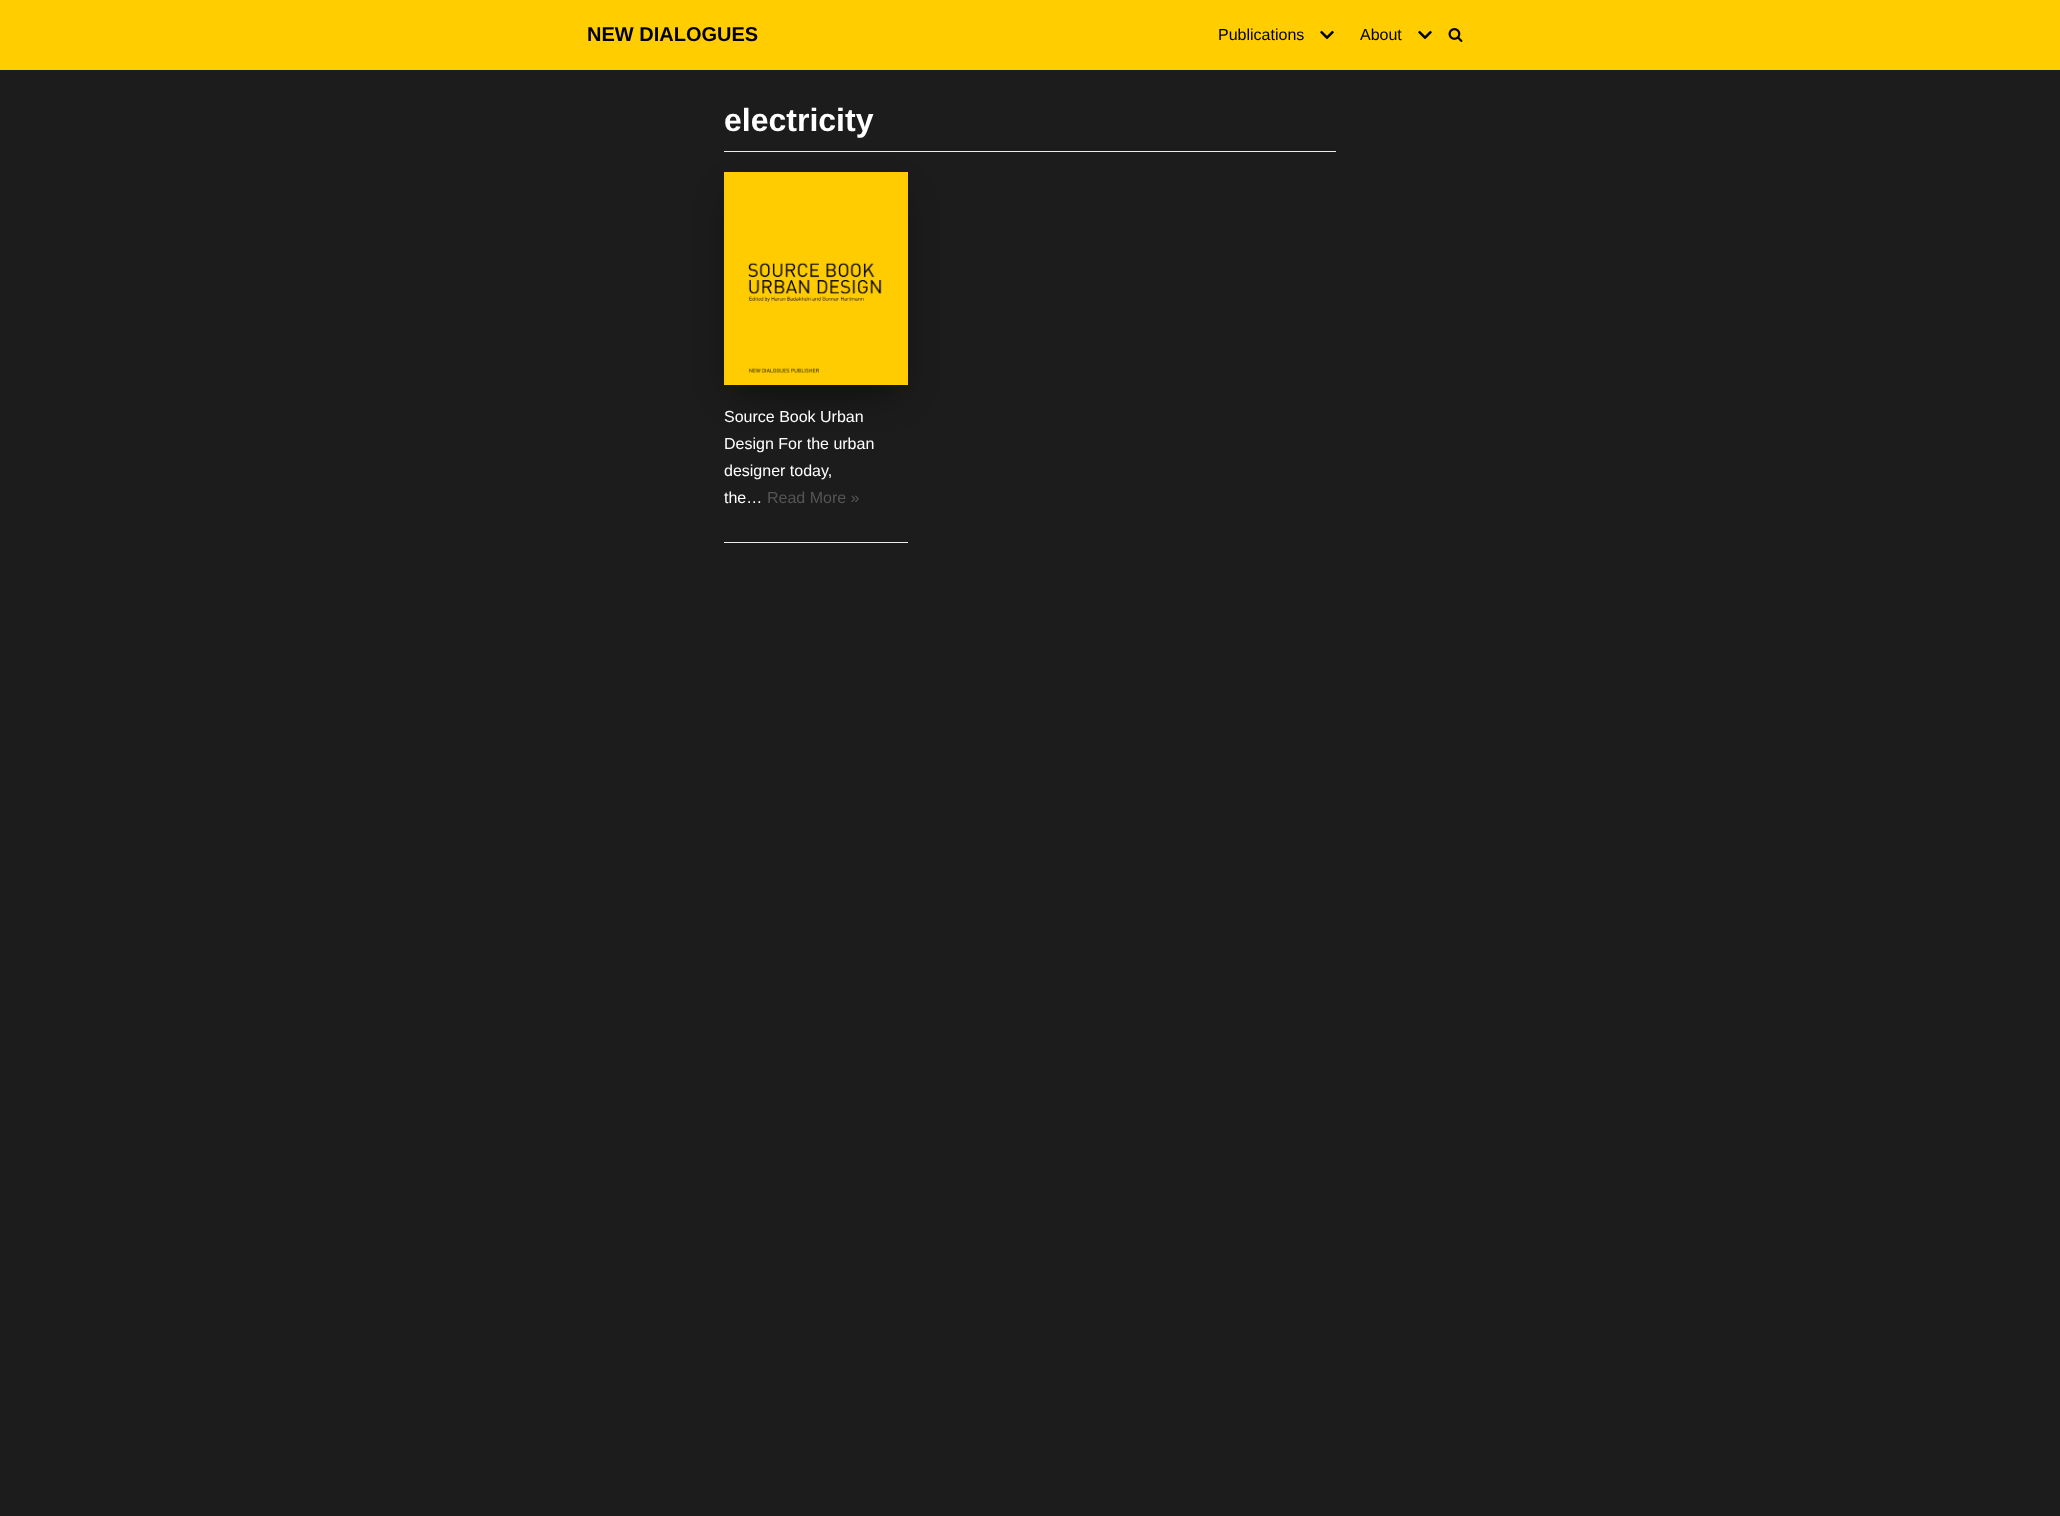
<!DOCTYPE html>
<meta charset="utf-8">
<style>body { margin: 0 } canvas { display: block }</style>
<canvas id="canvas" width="2060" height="1516"></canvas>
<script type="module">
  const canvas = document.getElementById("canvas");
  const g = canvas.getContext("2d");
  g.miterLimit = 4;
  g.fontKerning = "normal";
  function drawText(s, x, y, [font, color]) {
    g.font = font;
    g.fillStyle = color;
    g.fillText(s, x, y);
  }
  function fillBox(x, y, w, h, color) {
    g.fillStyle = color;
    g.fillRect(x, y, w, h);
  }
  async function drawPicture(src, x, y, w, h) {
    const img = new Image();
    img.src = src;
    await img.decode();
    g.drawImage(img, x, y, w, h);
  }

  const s1 = ["bold 20px Liberation Sans", "#000000"];
  const s2 = ["16px Liberation Sans", "#000000"];
  const s3 = ["bold 32px Liberation Sans", "#FFFFFF"];
  const s4 = ["16px Liberation Sans", "#FFFFFF"];
  const s5 = ["16px Liberation Sans", "#555555"];

  fillBox(0, 0, 2060, 1516, "#1C1C1C");
  fillBox(0, 0, 2060, 70, "#FFCD00");
  drawText("NEW DIALOGUES", 587, 41, s1);
  drawText("Publications", 1218, 40, s2);
  await drawPicture("pic1.png", 1320, 30, 14, 10);
  drawText("About", 1360, 40, s2);
  await drawPicture("pic1.png", 1418, 30, 14, 10);
  await drawPicture("pic2.png", 1448, 28, 15, 14);
  fillBox(724, 151, 612, 1, "#EDEDED");
  drawText("electricity", 724, 131, s3);
  fillBox(724, 542, 184, 1, "#EDEDED");
  g.fillStyle = "rgba(0, 0, 0, 0.56)";
  g.filter = "blur(19px)";
  g.beginPath();
  g.rect(736, 200, 160, 189);
  g.fill();
  g.filter = "none";
  await drawPicture("pic3.png", 724, 172, 184, 213);
  drawText("Source Book Urban", 724, 422, s4);
  drawText("Design For the urban", 724, 449, s4);
  drawText("designer today,", 724, 476, s4);
  drawText("the…", 724, 503, s4);
  drawText("Read More »", 767, 503, s5);
</script>
